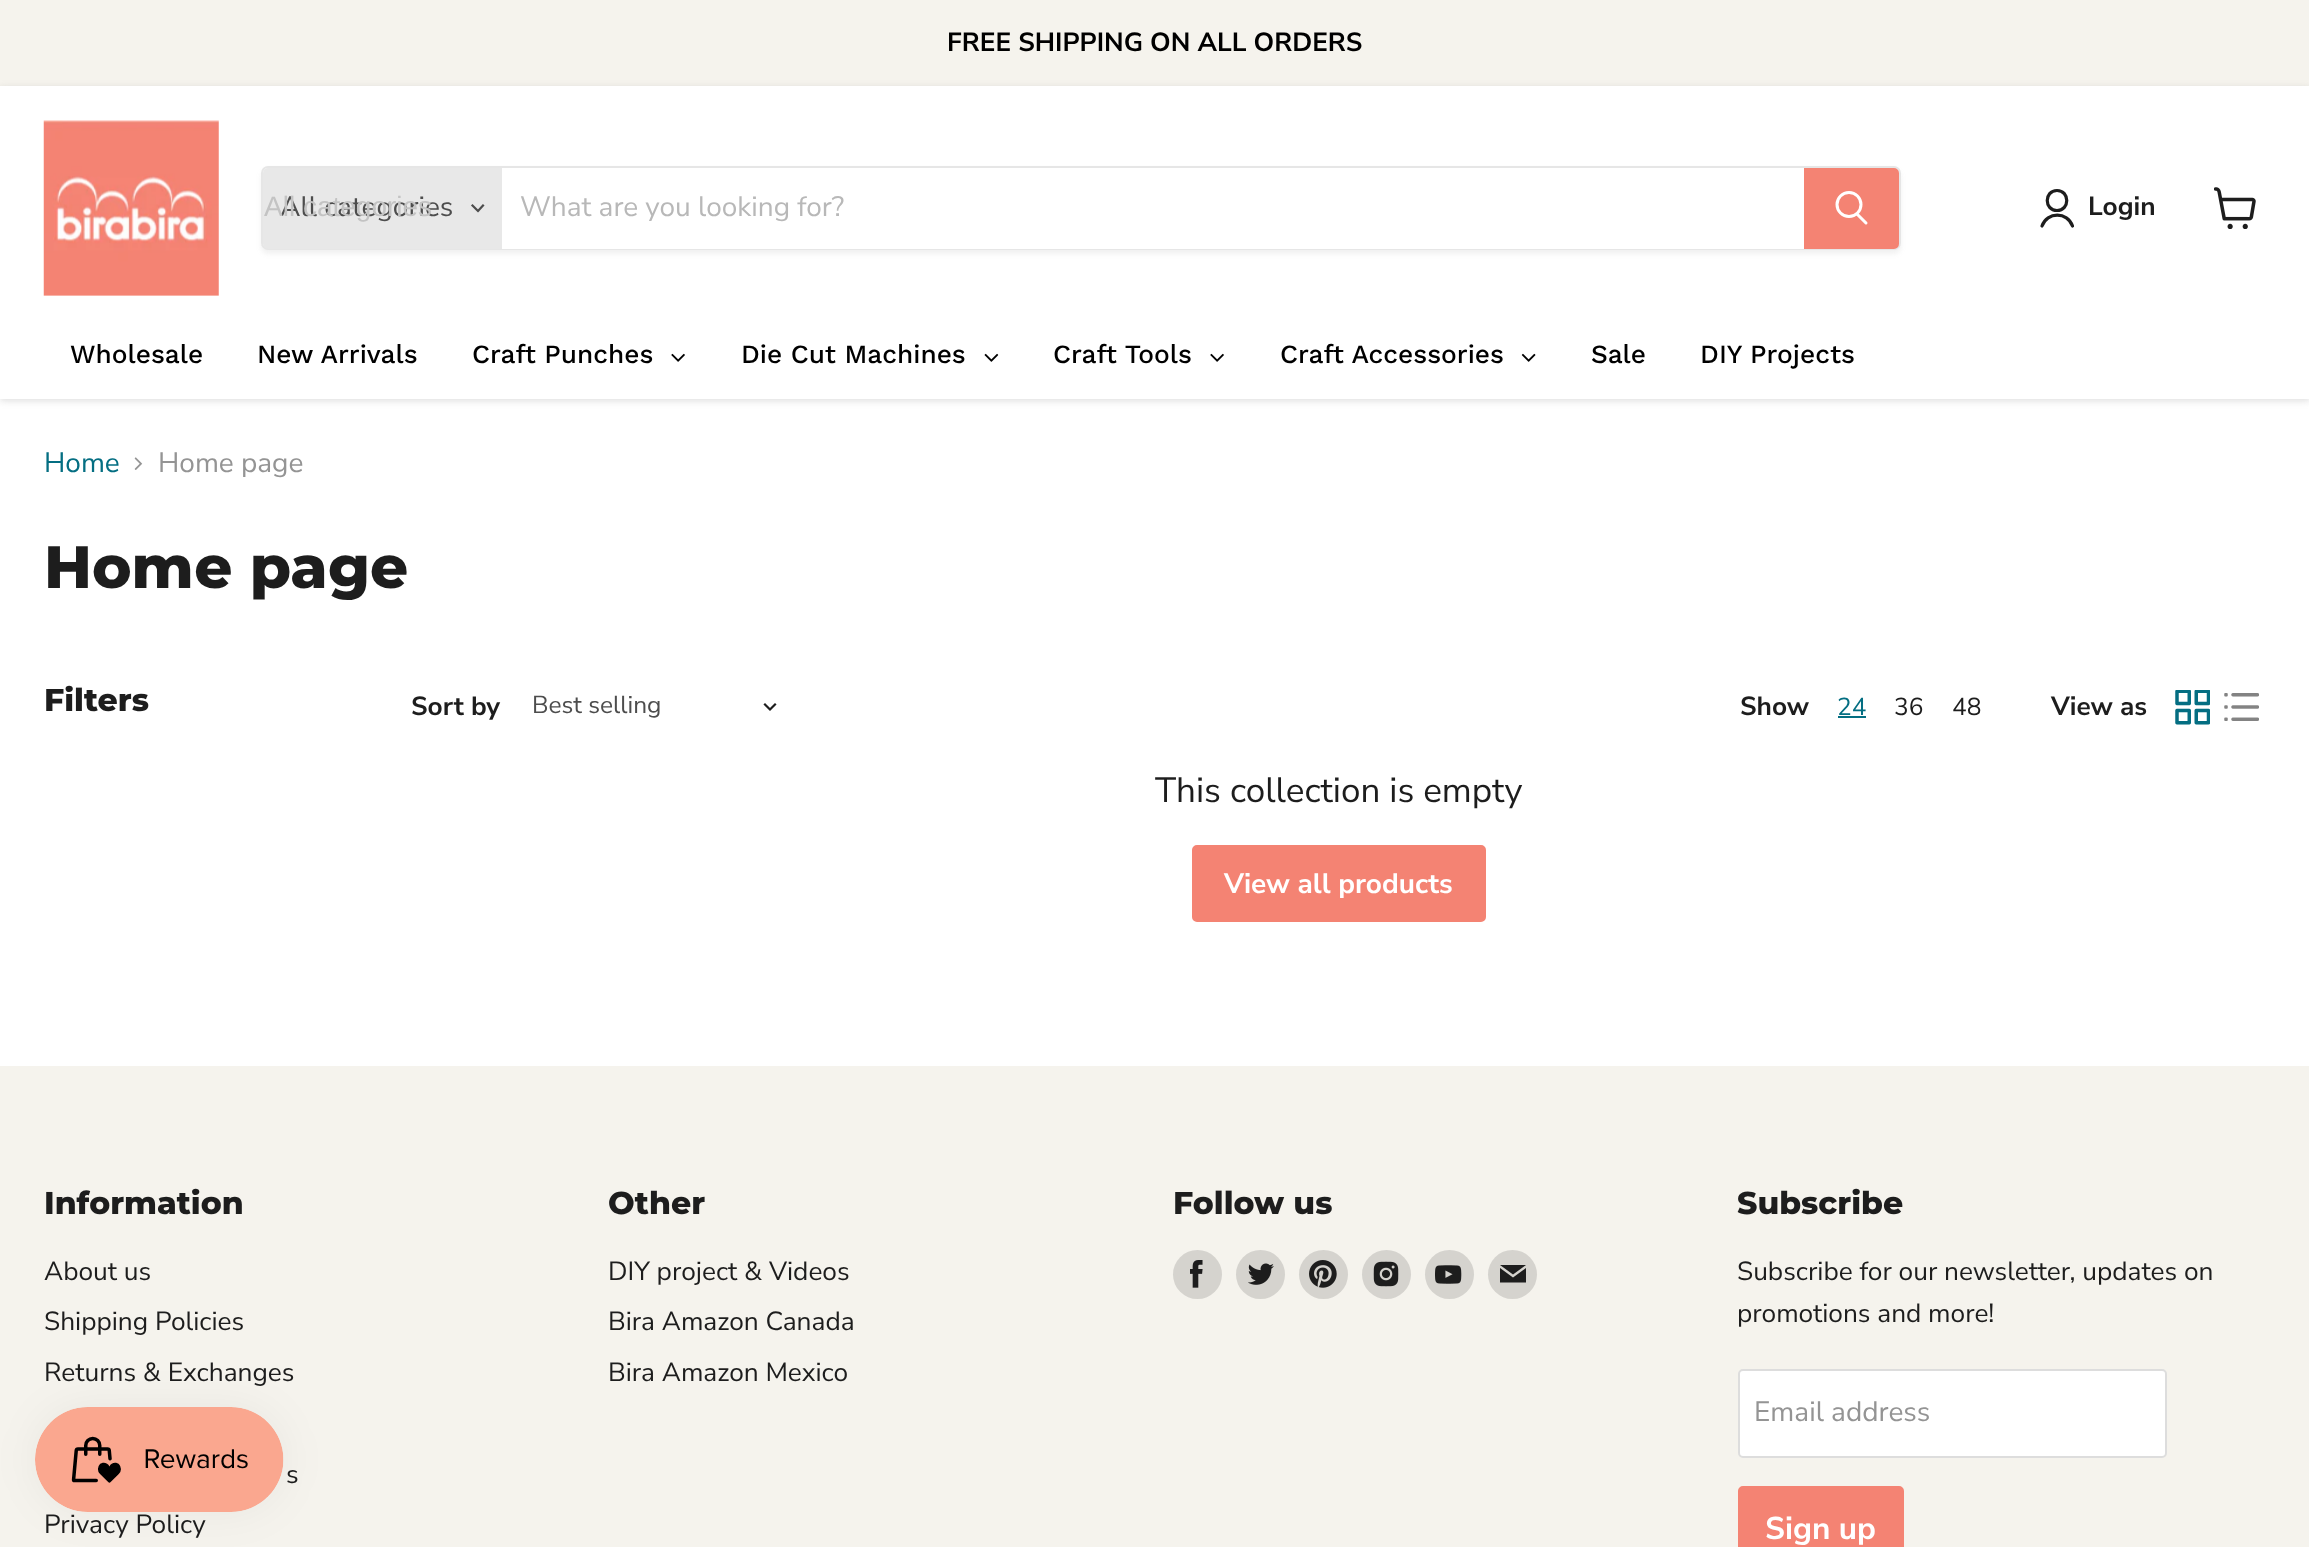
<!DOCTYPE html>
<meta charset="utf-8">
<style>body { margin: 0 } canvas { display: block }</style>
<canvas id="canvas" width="2309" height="1547"></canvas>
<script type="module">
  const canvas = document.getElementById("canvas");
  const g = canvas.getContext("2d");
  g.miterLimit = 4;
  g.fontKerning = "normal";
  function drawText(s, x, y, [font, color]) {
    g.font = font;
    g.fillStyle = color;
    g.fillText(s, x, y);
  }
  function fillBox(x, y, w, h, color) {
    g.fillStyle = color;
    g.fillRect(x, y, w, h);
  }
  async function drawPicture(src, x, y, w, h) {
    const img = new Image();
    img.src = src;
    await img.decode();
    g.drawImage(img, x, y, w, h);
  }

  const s1 = ["bold 26.25px Nunito Sans", "#000000"];
  const s2 = ["28px Nunito Sans", "#4D4D4D"];
  const s3 = ["28px Liberation Sans", "#C3C3C3"];
  const s4 = ["28px Nunito Sans", "#B8B8B8"];
  const s5 = ["bold 26.25px Nunito Sans", "#1D1D1D"];
  const s6 = ["500 26.25px Work Sans", "#000000"];
  const s7 = ["28px Nunito Sans", "#046E82"];
  const s8 = ["28px Nunito Sans", "#949494"];
  const s9 = ["800 59.5px Montserrat", "#1D1D1D"];
  const s10 = ["800 31.5px Montserrat", "#1D1D1D"];
  const s11 = ["24.5px Nunito Sans", "#4D4D4D"];
  const s12 = ["24.5px Nunito Sans", "#046E82"];
  const s13 = ["24.5px Nunito Sans", "#1D1D1D"];
  const s14 = ["35px Nunito Sans", "#1D1D1D"];
  const s15 = ["bold 28px Nunito Sans", "#FFFFFF"];
  const s16 = ["26.25px Nunito Sans", "#1D1D1D"];
  const s17 = ["bold 31.5px Nunito Sans", "#FFFFFF"];

  fillBox(0, 0, 2309, 1547, "#FFFFFF");
  fillBox(0, 0, 2309, 86, "#F5F3ED");
  drawText("FREE SHIPPING ON ALL ORDERS", 947, 51, s1);
  g.fillStyle = "rgba(128, 128, 128, 0.25)";
  g.filter = "blur(3.5px)";
  g.beginPath();
  g.rect(0, 88, 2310, 313);
  g.fill();
  g.filter = "none";
  fillBox(0, 86, 2309, 313, "#FFFFFF");
  await drawPicture("pic1.png", 43, 120, 176, 176);
  g.save();
  g.beginPath();
  g.moveTo(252, 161);
  g.lineTo(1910, 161);
  g.lineTo(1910, 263);
  g.lineTo(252, 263);
  g.closePath();
  g.moveTo(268, 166);
  g.lineTo(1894, 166);
  g.bezierCurveTo(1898, 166, 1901, 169, 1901, 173);
  g.lineTo(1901, 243);
  g.bezierCurveTo(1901, 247, 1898, 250, 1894, 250);
  g.lineTo(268, 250);
  g.bezierCurveTo(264, 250, 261, 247, 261, 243);
  g.lineTo(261, 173);
  g.bezierCurveTo(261, 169, 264, 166, 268, 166);
  g.closePath();
  g.clip("evenodd");
  g.fillStyle = "rgba(128, 128, 128, 0.11)";
  g.filter = "blur(2.5px)";
  g.beginPath();
  g.roundRect(261, 170, 1640, 84, 7);
  g.fill();
  g.filter = "none";
  g.restore();
  g.beginPath();
  g.roundRect(262, 167, 1638, 82, 6);
  g.strokeStyle = "rgba(128, 128, 128, 0.2)";
  g.lineWidth = 2;
  g.stroke();
  g.fillStyle = "#E8E8E8";
  g.beginPath();
  g.roundRect(263, 168, 239, 81, [5, 0, 0, 5]);
  g.fill();
  drawText("All categories", 280, 216, s2);
  drawText("All categories", 264, 216, s3);
  g.beginPath();
  g.moveTo(478, 211);
  g.lineTo(483, 205.5);
  g.moveTo(478, 211);
  g.lineTo(472.5, 205.5);
  g.strokeStyle = "#4D4D4D";
  g.lineWidth = 2.2;
  g.lineCap = "square";
  g.stroke();
  fillBox(502, 248, 1302, 1, "#FFFFFF");
  drawText("What are you looking for?", 520, 216, s4);
  g.fillStyle = "#F48373";
  g.beginPath();
  g.roundRect(1805, 169, 93, 79, [0, 4, 4, 0]);
  g.fill();
  g.strokeStyle = "#F48373";
  g.lineWidth = 2;
  g.stroke();
  g.beginPath();
  g.moveTo(1866, 223);
  g.lineTo(1857.5, 214.5);
  g.strokeStyle = "#FFFFFF";
  g.lineWidth = 3;
  g.lineCap = "round";
  g.stroke();
  g.beginPath();
  g.arc(1849, 204.5, 12, 0, Math.PI * 2);
  g.stroke();
  g.beginPath();
  g.moveTo(2057, 210.5);
  g.bezierCurveTo(2070, 210.5, 2070, 190.5, 2057, 190.5);
  g.bezierCurveTo(2044, 190.5, 2044, 210.5, 2057, 210.5);
  g.closePath();
  g.moveTo(2072.5, 226);
  g.bezierCurveTo(2067.5, 211.5, 2047, 211.5, 2042, 226);
  g.strokeStyle = "#1D1D1D";
  g.lineWidth = 3.2;
  g.lineJoin = "round";
  g.stroke();
  drawText("Login", 2088, 215, s5);
  await drawPicture("pic2.png", 2214, 187, 42, 42);
  drawText("Wholesale", 70, 363, s6);
  drawText("New Arrivals", 257, 363, s6);
  drawText("Craft Punches", 472, 363, s6);
  await drawPicture("pic3.png", 671, 353, 14, 9);
  drawText("Die Cut Machines", 741, 363, s6);
  await drawPicture("pic4.png", 984, 353, 15, 9);
  drawText("Craft Tools", 1053, 363, s6);
  await drawPicture("pic3.png", 1210, 353, 14, 9);
  drawText("Craft Accessories", 1280, 363, s6);
  await drawPicture("pic5.png", 1521, 353, 15, 9);
  drawText("Sale", 1591, 363, s6);
  drawText("DIY Projects", 1700, 363, s6);
  drawText("Home", 44, 472, s7);
  await drawPicture("pic6.png", 134, 457, 9, 13);
  drawText("Home page", 158, 472, s8);
  drawText("Home page", 44, 588, s9);
  drawText("Filters", 44, 711, s10);
  drawText("Sort by", 411, 715, s5);
  drawText("Best selling", 532, 713, s11);
  g.beginPath();
  g.moveTo(770, 709.5);
  g.lineTo(775, 704.5);
  g.moveTo(770, 709.5);
  g.lineTo(765, 704.5);
  g.lineWidth = 2.2;
  g.lineCap = "square";
  g.lineJoin = "miter";
  g.stroke();
  drawText("Show", 1740, 715, s5);
  drawText("24", 1837, 715, s12);
  fillBox(1838, 716, 28, 2, "#046E82");
  drawText("36", 1894, 715, s13);
  drawText("48", 1952, 715, s13);
  drawText("View as", 2051, 715, s5);
  await drawPicture("pic7.png", 2175, 690, 35, 35);
  await drawPicture("pic8.png", 2224, 693, 35, 28);
  drawText("This collection is empty", 1155, 802, s14);
  g.fillStyle = "#F48373";
  g.beginPath();
  g.roundRect(1193, 846, 292, 75, 4);
  g.fill();
  g.strokeStyle = "#F48373";
  g.lineWidth = 2;
  g.stroke();
  drawText("View all products", 1224, 893, s15);
  fillBox(0, 1066, 2309, 481, "#F5F3ED");
  drawText("Information", 44, 1214, s10);
  drawText("About us", 44, 1280, s16);
  drawText("Shipping Policies", 44, 1330, s16);
  drawText("Returns & Exchanges", 44, 1381, s16);
  drawText("s", 286, 1483, s16);
  drawText("Privacy Policy", 44, 1533, s16);
  drawText("Other", 608, 1214, s10);
  drawText("DIY project & Videos", 608, 1280, s16);
  drawText("Bira Amazon Canada", 608, 1330, s16);
  drawText("Bira Amazon Mexico", 608, 1381, s16);
  drawText("Follow us", 1173, 1214, s10);
  g.fillStyle = "#D5D3CE";
  g.beginPath();
  g.arc(1197.5, 1274.5, 24.5, 0, Math.PI * 2);
  g.fill();
  await drawPicture("pic9.png", 1190, 1260, 13, 28);
  g.beginPath();
  g.arc(1260.5, 1274.5, 24.5, 0, Math.PI * 2);
  g.fill();
  await drawPicture("pic10.png", 1248, 1263, 26, 22);
  g.beginPath();
  g.arc(1323.5, 1274.5, 24.5, 0, Math.PI * 2);
  g.fill();
  await drawPicture("pic11.png", 1309, 1260, 28, 28);
  g.beginPath();
  g.arc(1386.5, 1274.5, 24.5, 0, Math.PI * 2);
  g.fill();
  await drawPicture("pic12.png", 1373, 1261, 26, 26);
  g.beginPath();
  g.arc(1449.5, 1274.5, 24.5, 0, Math.PI * 2);
  g.fill();
  await drawPicture("pic13.png", 1435, 1265, 27, 19);
  g.beginPath();
  g.arc(1512.5, 1274.5, 24.5, 0, Math.PI * 2);
  g.fill();
  g.fillStyle = "#1D1D1D";
  g.beginPath();
  g.moveTo(1526, 1265);
  g.lineTo(1500, 1265);
  g.lineTo(1513, 1274.5);
  g.closePath();
  g.moveTo(1513, 1277.5);
  g.lineTo(1500, 1268);
  g.lineTo(1500, 1282.5);
  g.lineTo(1526, 1282.5);
  g.lineTo(1526, 1268);
  g.closePath();
  g.fill("evenodd");
  drawText("Subscribe", 1737, 1214, s10);
  drawText("Subscribe for our newsletter, updates on", 1737, 1280, s16);
  drawText("promotions and more!", 1737, 1322, s16);
  g.fillStyle = "#FFFFFF";
  g.beginPath();
  g.roundRect(1739, 1370, 427, 87, 4);
  g.fill();
  g.strokeStyle = "#DDDDDD";
  g.stroke();
  drawText("Email address", 1754, 1421, s8);
  g.fillStyle = "#F48373";
  g.beginPath();
  g.roundRect(1739, 1487, 164, 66, 4);
  g.fill();
  g.strokeStyle = "#F48373";
  g.stroke();
  drawText("Sign up", 1765, 1539, s17);
  g.fillStyle = "rgba(0, 0, 0, 0.05)";
  g.filter = "blur(22px)";
  g.beginPath();
  g.roundRect(35, 1407, 249, 105, 52.5);
  g.fill();
  g.filter = "none";
  await drawPicture("pic14.png", 35, 1407, 249, 105);
</script>
